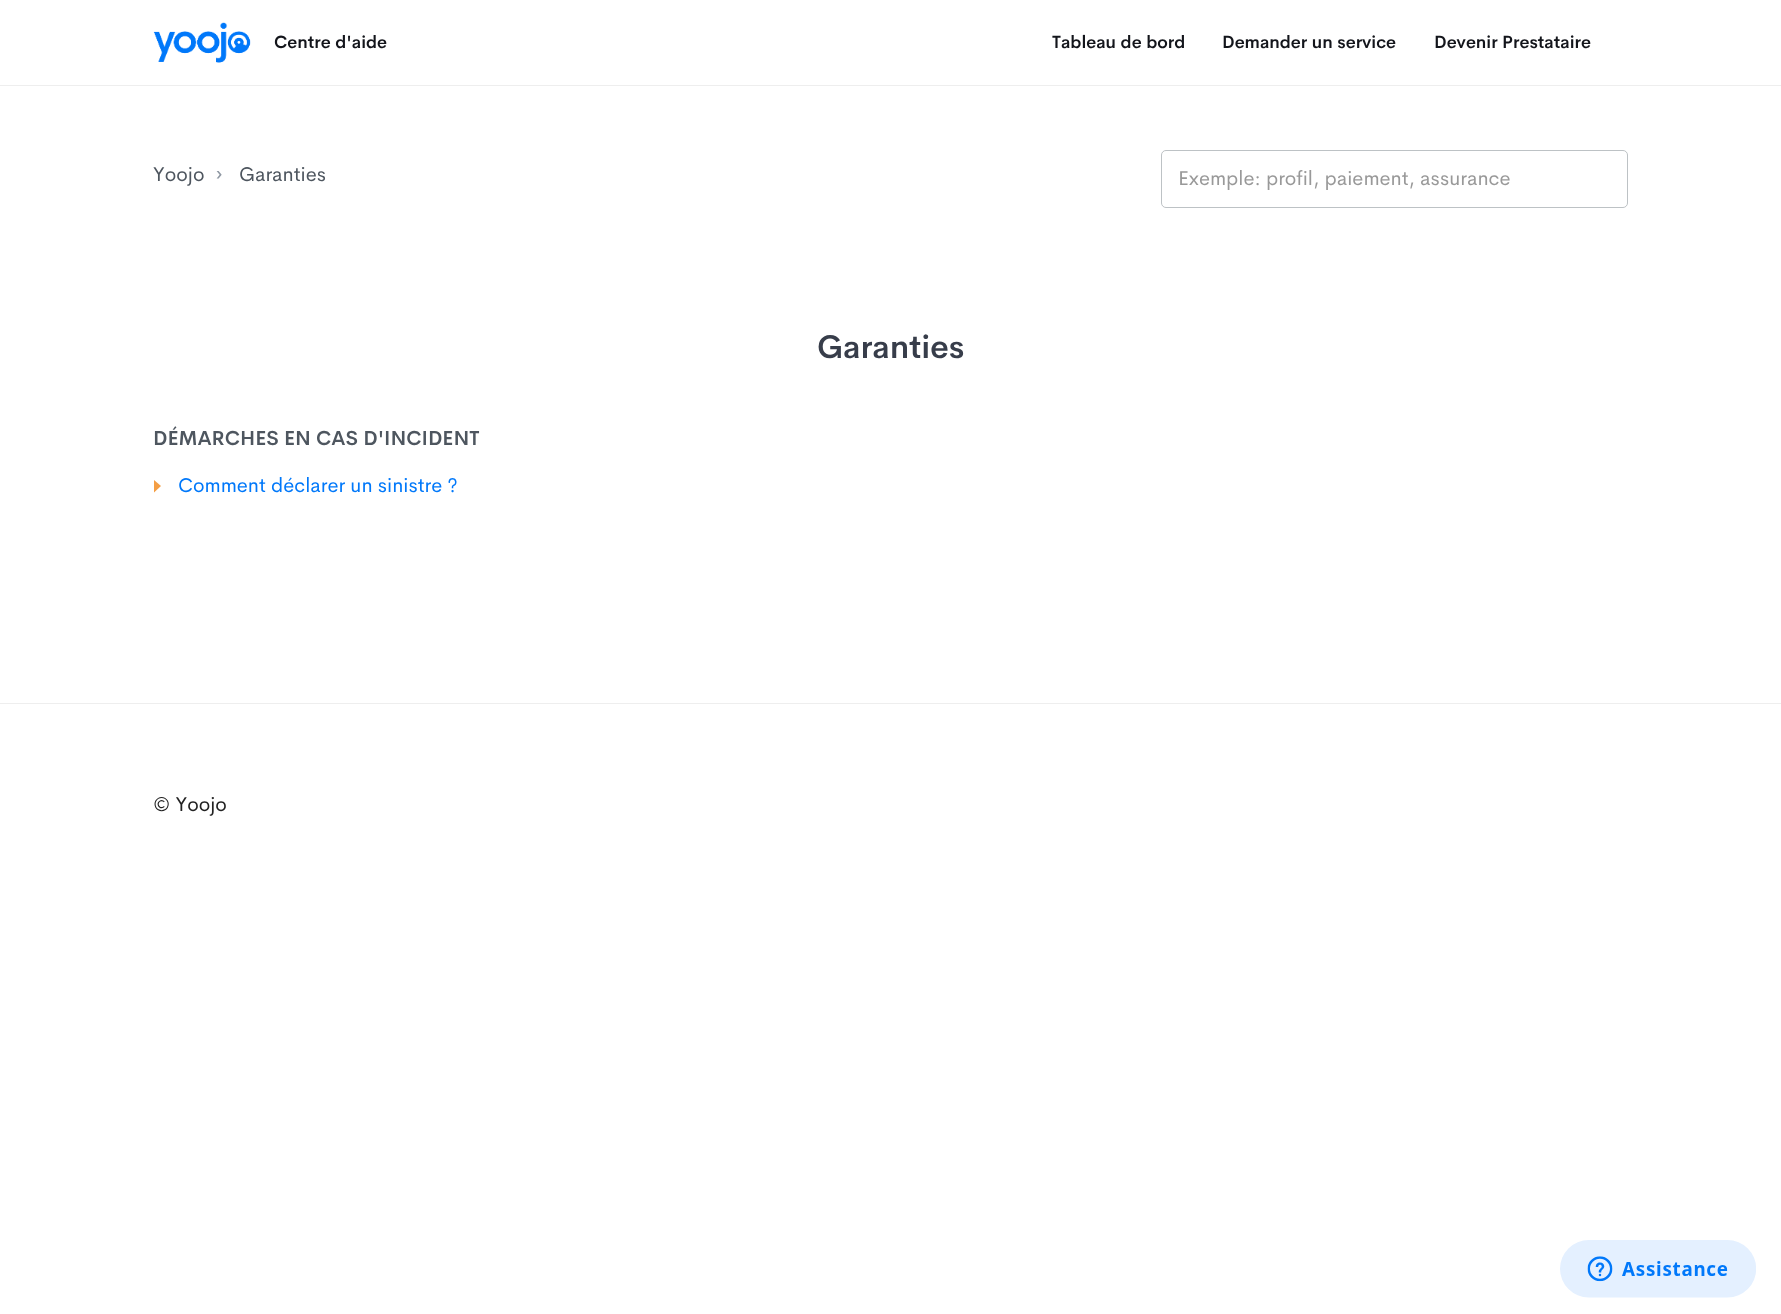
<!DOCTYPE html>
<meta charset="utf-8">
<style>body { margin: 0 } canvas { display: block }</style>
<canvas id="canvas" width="1781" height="1314"></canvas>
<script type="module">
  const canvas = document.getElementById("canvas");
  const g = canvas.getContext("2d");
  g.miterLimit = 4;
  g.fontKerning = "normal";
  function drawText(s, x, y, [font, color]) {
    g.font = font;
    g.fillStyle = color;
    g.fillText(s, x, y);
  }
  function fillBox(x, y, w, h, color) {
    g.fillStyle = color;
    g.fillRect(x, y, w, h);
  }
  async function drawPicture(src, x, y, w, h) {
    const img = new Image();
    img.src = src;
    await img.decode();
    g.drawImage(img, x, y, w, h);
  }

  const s1 = ["600 17.5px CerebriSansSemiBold", "#13151B"];
  const s2 = ["20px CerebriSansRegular", "#4E565F"];
  const s3 = ["600 20px CerebriSansSemiBold", "#8F98A3"];
  const s4 = ["20px CerebriSansRegular", "#999999"];
  const s5 = ["600 32.5px CerebriSansSemiBold", "#373D4A"];
  const s6 = ["600 20px CerebriSansSemiBold", "#4E565F"];
  const s7 = ["20px CerebriSansRegular", "#0078FA"];
  const s8 = ["20px CerebriSansRegular", "#222222"];

  fillBox(0, 0, 1781, 1314, "#FFFFFF");
  fillBox(0, 85, 1781, 1, "#EEEEEE");
  await drawPicture("pic1.png", 153, 22, 98, 41);
  drawText("Centre d'aide", 274, 48, s1);
  drawText("Tableau de bord", 1052, 48, s1);
  drawText("Demander un service", 1222, 48, s1);
  drawText("Devenir Prestataire", 1434, 48, s1);
  drawText("Yoojo", 153, 181, s2);
  drawText("›", 216, 181, s3);
  drawText("Garanties", 239, 181, s2);
  g.beginPath();
  g.roundRect(1161.5, 150.5, 466, 57, 4.5);
  g.strokeStyle = "#BDC2C5";
  g.stroke();
  drawText("Exemple: profil, paiement, assurance", 1178, 185, s4);
  drawText("Garanties", 817, 358, s5);
  drawText("DÉMARCHES EN CAS D'INCIDENT", 153, 445, s6);
  g.fillStyle = "#F49E44";
  g.beginPath();
  g.moveTo(154, 492.5);
  g.lineTo(154, 480);
  g.lineTo(161, 486);
  g.closePath();
  g.fill();
  drawText("Comment déclarer un sinistre ?", 178, 492, s7);
  fillBox(0, 703, 1781, 1, "#EEEEEE");
  drawText("© Yoojo", 153, 811, s8);
  await drawPicture("pic2.png", 1560, 1240, 196, 58);
</script>
